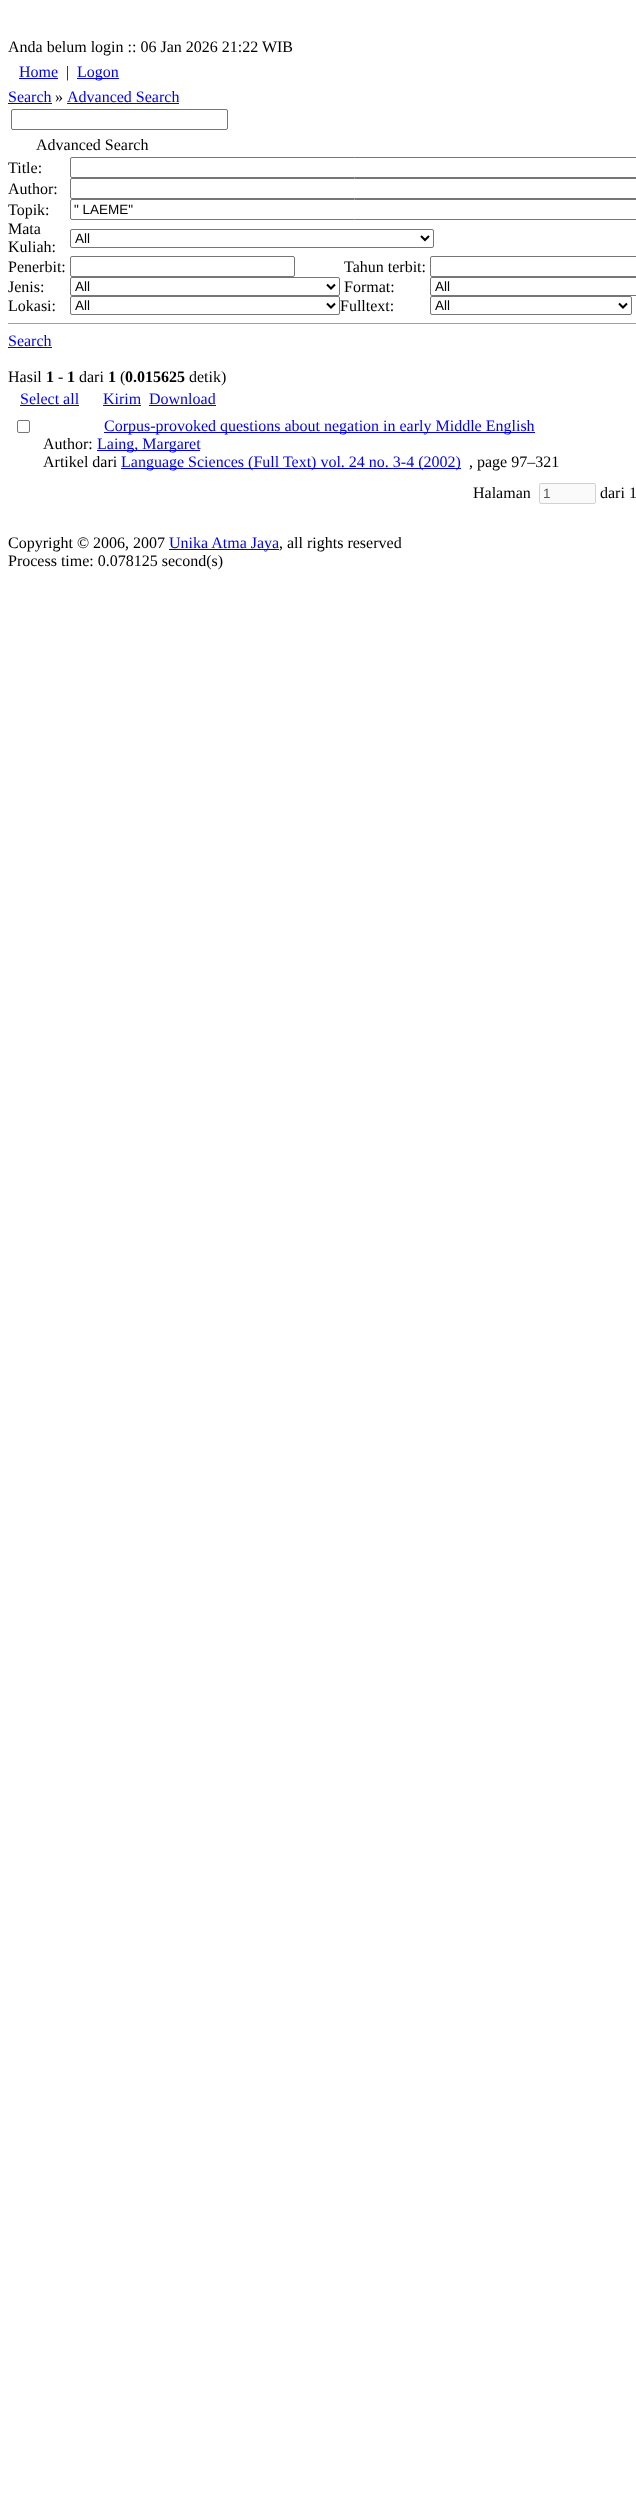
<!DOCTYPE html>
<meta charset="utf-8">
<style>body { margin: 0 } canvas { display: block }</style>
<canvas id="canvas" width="636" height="2517"></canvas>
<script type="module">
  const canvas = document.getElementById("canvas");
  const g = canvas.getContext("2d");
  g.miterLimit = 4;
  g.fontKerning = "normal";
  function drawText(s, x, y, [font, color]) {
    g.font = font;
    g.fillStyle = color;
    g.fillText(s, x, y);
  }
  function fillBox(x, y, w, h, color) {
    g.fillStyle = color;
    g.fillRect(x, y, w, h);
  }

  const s1 = ["16px Liberation Serif", "#000000"];
  const s2 = ["16px Liberation Serif", "#0000EE"];
  const s3 = ["13.5px Liberation Sans", "#000000"];
  const s4 = ["bold 16px Liberation Serif", "#000000"];
  const s5 = ["13.5px Liberation Sans", "#545454"];

  fillBox(0, 0, 636, 2517, "#FFFFFF");
  drawText("Anda belum login :: 06 Jan 2026 21:22 WIB", 8, 52, s1);
  drawText("Home", 19, 77, s2);
  fillBox(19, 78, 39, 1, "#0000EE");
  drawText("|", 66, 77, s1);
  fillBox(77, 78, 42, 1, "#0000EE");
  drawText("Logon", 77, 77, s2);
  drawText("Search", 8, 102, s2);
  fillBox(8, 103, 44, 1, "#0000EE");
  drawText("»", 55, 102, s1);
  drawText("Advanced Search", 67, 102, s2);
  fillBox(67, 103, 112, 1, "#0000EE");
  g.beginPath();
  g.roundRect(11.5, 109.5, 216, 20, 1.5);
  g.strokeStyle = "#767676";
  g.stroke();
  drawText("Advanced Search", 36, 150, s1);
  drawText("Title:", 8, 173, s1);
  g.beginPath();
  g.roundRect(70.5, 157.5, 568, 20, 1.5);
  g.stroke();
  drawText("Author:", 8, 194, s1);
  g.beginPath();
  g.roundRect(70.5, 178.5, 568, 20, 1.5);
  g.stroke();
  drawText("Topik:", 8, 215, s1);
  g.beginPath();
  g.roundRect(70.5, 199.5, 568, 20, 1.5);
  g.stroke();
  drawText("\" LAEME\"", 74, 214, s3);
  drawText("Mata", 8, 234, s1);
  drawText("Kuliah:", 8, 252, s1);
  g.beginPath();
  g.roundRect(70.5, 229.5, 363, 18, 1.5);
  g.stroke();
  g.beginPath();
  g.moveTo(421, 236);
  g.lineTo(425, 240);
  g.lineTo(429, 236);
  g.strokeStyle = "#000000";
  g.lineWidth = 2;
  g.stroke();
  drawText("All", 75, 243, s3);
  drawText("Penerbit:", 8, 272, s1);
  g.beginPath();
  g.roundRect(70.5, 256.5, 224, 20, 1.5);
  g.strokeStyle = "#767676";
  g.lineWidth = 1;
  g.stroke();
  drawText("Tahun terbit:", 344, 272, s1);
  g.beginPath();
  g.roundRect(430.5, 256.5, 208, 20, 1.5);
  g.stroke();
  drawText("Jenis:", 8, 292, s1);
  g.beginPath();
  g.roundRect(70.5, 277.5, 269, 18, 1.5);
  g.stroke();
  g.beginPath();
  g.moveTo(327, 284.5);
  g.lineTo(331, 288.5);
  g.lineTo(335, 284.5);
  g.strokeStyle = "#000000";
  g.lineWidth = 2;
  g.stroke();
  drawText("All", 75, 291, s3);
  drawText("Format:", 344, 292, s1);
  g.beginPath();
  g.roundRect(430.5, 277.5, 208, 18, 1.5);
  g.strokeStyle = "#767676";
  g.lineWidth = 1;
  g.stroke();
  drawText("All", 435, 291, s3);
  drawText("Lokasi:", 8, 311, s1);
  g.beginPath();
  g.roundRect(70.5, 296.5, 269, 18, 1.5);
  g.stroke();
  g.beginPath();
  g.moveTo(327, 303.5);
  g.lineTo(331, 307.5);
  g.lineTo(335, 303.5);
  g.strokeStyle = "#000000";
  g.lineWidth = 2;
  g.stroke();
  drawText("All", 75, 310, s3);
  drawText("Fulltext:", 340, 311, s1);
  g.beginPath();
  g.roundRect(430.5, 296.5, 201, 18, 1.5);
  g.strokeStyle = "#767676";
  g.lineWidth = 1;
  g.stroke();
  g.beginPath();
  g.moveTo(619, 303.5);
  g.lineTo(623, 307.5);
  g.lineTo(627, 303.5);
  g.strokeStyle = "#000000";
  g.lineWidth = 2;
  g.stroke();
  drawText("All", 435, 310, s3);
  fillBox(8, 323, 628, 1, "#9F9F9F");
  drawText("Search", 8, 346, s2);
  fillBox(8, 347, 44, 1, "#0000EE");
  drawText("Hasil", 8, 382, s1);
  drawText("1", 46, 382, s4);
  drawText("-", 58, 382, s1);
  drawText("1", 67, 382, s4);
  drawText("dari", 79, 382, s1);
  drawText("1", 108, 382, s4);
  drawText("(", 120, 382, s1);
  drawText("0.015625", 125, 382, s4);
  drawText("detik)", 189, 382, s1);
  drawText("Select all", 20, 404, s2);
  fillBox(20, 405, 59, 1, "#0000EE");
  drawText("Kirim", 103, 404, s2);
  fillBox(103, 405, 38, 1, "#0000EE");
  drawText("Download", 149, 404, s2);
  fillBox(149, 405, 67, 1, "#0000EE");
  g.beginPath();
  g.roundRect(17.5, 420.5, 12, 12, 1.5);
  g.strokeStyle = "#767676";
  g.lineWidth = 1;
  g.stroke();
  fillBox(104, 432, 431, 1, "#0000EE");
  drawText("Corpus-provoked questions about negation in early Middle English", 104, 431, s2);
  drawText("Author:", 43, 449, s1);
  fillBox(97, 450, 103, 1, "#0000EE");
  drawText("Laing, Margaret", 97, 449, s2);
  drawText("Artikel dari", 43, 467, s1);
  fillBox(121, 468, 340, 1, "#0000EE");
  drawText("Language Sciences (Full Text) vol. 24 no. 3-4 (2002)", 121, 467, s2);
  drawText(", page 97–321", 469, 467, s1);
  drawText("Halaman", 473, 498, s1);
  g.fillStyle = "#FAFAFA";
  g.beginPath();
  g.roundRect(539.5, 483.5, 56, 20, 1.5);
  g.fill();
  g.strokeStyle = "#D2D2D2";
  g.stroke();
  drawText("1", 543, 498, s5);
  drawText("dari 1", 600, 498, s1);
  drawText("Copyright © 2006, 2007", 8, 548, s1);
  fillBox(169, 549, 110, 1, "#0000EE");
  drawText("Unika Atma Jaya", 169, 548, s2);
  drawText(", all rights reserved", 279, 548, s1);
  drawText("Process time: 0.078125 second(s)", 8, 566, s1);
</script>
